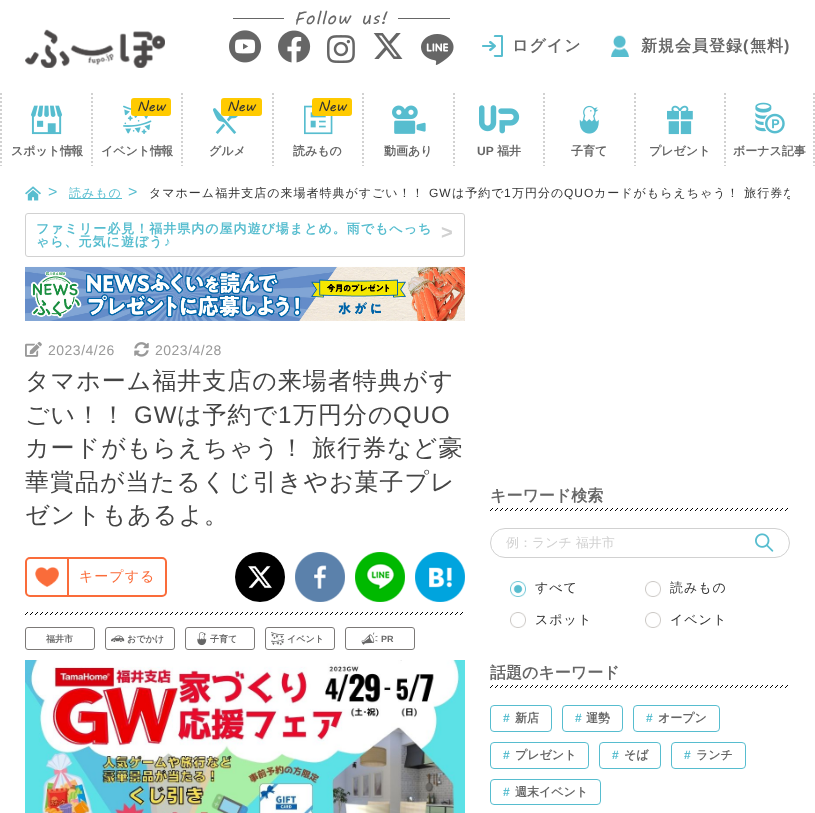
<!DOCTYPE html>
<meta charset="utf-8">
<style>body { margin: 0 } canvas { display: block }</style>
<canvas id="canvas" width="815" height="813"></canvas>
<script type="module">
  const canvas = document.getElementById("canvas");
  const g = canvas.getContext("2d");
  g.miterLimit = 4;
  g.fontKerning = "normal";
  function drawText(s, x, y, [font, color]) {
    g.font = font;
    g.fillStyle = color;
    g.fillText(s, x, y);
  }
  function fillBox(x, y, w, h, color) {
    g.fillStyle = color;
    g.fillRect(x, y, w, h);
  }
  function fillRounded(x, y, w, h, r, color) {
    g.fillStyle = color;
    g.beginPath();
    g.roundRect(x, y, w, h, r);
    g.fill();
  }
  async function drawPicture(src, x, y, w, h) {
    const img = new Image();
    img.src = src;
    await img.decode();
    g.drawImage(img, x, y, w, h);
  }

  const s1 = ["18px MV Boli", "#666666"];
  const s2 = ["bold 16px WenQuanYi Zen Hei", "#666666"];
  const s3 = ["bold 16px Liberation Sans", "#666666"];
  const s4 = ["bold 12px WenQuanYi Zen Hei", "#666666"];
  const s5 = ["14px MV Boli", "#333333"];
  const s6 = ["bold 12px Liberation Sans", "#666666"];
  const s7 = ["16px Liberation Sans", "#57BDCF"];
  const s8 = ["500 12px WenQuanYi Zen Hei", "#57BDCF"];
  const s9 = ["500 12px WenQuanYi Zen Hei", "#333333"];
  const s10 = ["12px Liberation Sans", "#333333"];
  const s11 = ["bold 13px WenQuanYi Zen Hei", "#57BDCF"];
  const s12 = ["bold 13px Liberation Sans", "#57BDCF"];
  const s13 = ["bold 20px Liberation Sans", "#D1D1D1"];
  const s14 = ["14px Liberation Sans", "#999999"];
  const s15 = ["500 24px WenQuanYi Zen Hei", "#444444"];
  const s16 = ["24px Liberation Sans", "#444444"];
  const s17 = ["500 14px WenQuanYi Zen Hei", "#FA6C3A"];
  const s18 = ["bold 9px WenQuanYi Zen Hei", "#666666"];
  const s19 = ["bold 9px Liberation Sans", "#666666"];
  const s20 = ["500 13px WenQuanYi Zen Hei", "#D1D1D1"];
  const s21 = ["500 13px WenQuanYi Zen Hei", "#333333"];
  const s22 = ["bold 12px Liberation Sans", "#57BDCF"];

  fillBox(0, 0, 815, 813, "#FFFFFF");
  await drawPicture("pic1.png", 25, 29, 140, 39);
  fillBox(233, 18, 217, 1, "#666666");
  fillBox(284, 18, 114, 1, "#FFFFFF");
  g.letterSpacing = "1px";
  drawText("Follow us!", 294, 24, s1);
  await drawPicture("pic2.png", 229, 30, 33, 33);
  await drawPicture("pic3.png", 278, 30, 33, 33);
  await drawPicture("pic4.png", 327, 35, 28, 28);
  await drawPicture("pic5.png", 373, 33, 30, 26);
  await drawPicture("pic6.png", 421, 34, 33, 31);
  await drawPicture("pic7.png", 482, 35, 21, 22);
  drawText("ログイン", 512, 51, s2);
  await drawPicture("pic8.png", 611, 35, 18, 22);
  drawText("新規会員登録", 641, 51, s2);
  drawText("(", 743, 51, s3);
  drawText("無料", 750, 51, s2);
  drawText(")", 784, 51, s3);
  g.beginPath();
  g.moveTo(1, 93);
  g.lineTo(1, 166);
  g.strokeStyle = "#D1D1D1";
  g.lineWidth = 2;
  g.setLineDash([2, 2]);
  g.stroke();
  await drawPicture("pic9.png", 31, 105, 32, 30);
  g.letterSpacing = "0px";
  drawText("スポット", 11, 155, s4);
  g.letterSpacing = "-1px";
  drawText("情報", 60, 155, s4);
  g.beginPath();
  g.moveTo(92, 93);
  g.lineTo(92, 166);
  g.stroke();
  await drawPicture("pic10.png", 123, 105, 29, 29);
  fillRounded(131, 98, 40, 18, 3, "#FFCA00");
  g.letterSpacing = "0px";
  drawText("New", 137, 111, s5);
  drawText("イベント", 101, 155, s4);
  g.letterSpacing = "-1px";
  drawText("情報", 150, 155, s4);
  g.beginPath();
  g.moveTo(182, 93);
  g.lineTo(182, 166);
  g.stroke();
  await drawPicture("pic11.png", 213, 108, 25, 26);
  fillRounded(221, 98, 41, 18, 3, "#FFCA00");
  g.letterSpacing = "0px";
  drawText("New", 227, 111, s5);
  drawText("グルメ", 209, 155, s4);
  g.beginPath();
  g.moveTo(273, 93);
  g.lineTo(273, 166);
  g.stroke();
  await drawPicture("pic12.png", 304, 105, 29, 30);
  fillRounded(312, 98, 40, 18, 3, "#FFCA00");
  drawText("New", 318, 111, s5);
  drawText("読みもの", 293, 155, s4);
  g.beginPath();
  g.moveTo(363, 93);
  g.lineTo(363, 166);
  g.stroke();
  await drawPicture("pic13.png", 392, 105, 34, 29);
  drawText("動画あり", 384, 155, s4);
  g.beginPath();
  g.moveTo(454, 93);
  g.lineTo(454, 166);
  g.stroke();
  await drawPicture("pic14.png", 479, 105, 41, 29);
  drawText("UP", 477, 155, s6);
  drawText("福井", 497, 155, s4);
  g.beginPath();
  g.moveTo(544, 93);
  g.lineTo(544, 166);
  g.stroke();
  await drawPicture("pic15.png", 579, 105, 20, 29);
  drawText("子育て", 571, 155, s4);
  g.beginPath();
  g.moveTo(635, 93);
  g.lineTo(635, 166);
  g.stroke();
  await drawPicture("pic16.png", 667, 105, 26, 30);
  drawText("プレゼント", 649, 155, s4);
  g.beginPath();
  g.moveTo(814, 93);
  g.lineTo(814, 166);
  g.stroke();
  g.beginPath();
  g.moveTo(725, 93);
  g.lineTo(725, 166);
  g.stroke();
  await drawPicture("pic17.png", 755, 102, 30, 32);
  drawText("ボーナス記事", 733, 155, s4);
  await drawPicture("pic18.png", 25, 186, 16, 15);
  g.letterSpacing = "1px";
  drawText(">", 48, 197, s7);
  fillBox(69, 198, 53, 1, "#57BDCF");
  drawText("読みもの", 69, 197, s8);
  drawText(">", 128, 197, s7);
  drawText("タマホーム福井支店の来場者特典がすごい！！", 149, 197, s9);
  drawText("GW", 429, 197, s10);
  drawText("は予約で", 452, 197, s9);
  drawText("1", 504, 197, s10);
  drawText("万円分の", 512, 197, s9);
  drawText("QUO", 564, 197, s10);
  g.save();
  g.beginPath();
  g.rect(25, 181, 765, 22);
  g.clip();
  drawText("カードがもらえちゃう！ 旅行券な", 594, 197, s9);
  g.restore();
  g.beginPath();
  g.roundRect(25.5, 213.5, 439, 43, 2.5);
  g.lineWidth = 1;
  g.setLineDash([]);
  g.stroke();
  drawText("ファミリー必見！福井県内の屋内遊び場まとめ。雨でもへっち", 36, 233, s11);
  drawText("ゃら、元気に遊ぼう", 36, 246, s11);
  drawText("♪", 164, 246, s12);
  drawText(">", 441, 239, s13);
  await drawPicture("pic19.png", 25, 266, 440, 55);
  await drawPicture("pic20.png", 25, 341, 17, 16);
  g.letterSpacing = "0.5px";
  drawText("2023/4/26", 48, 355, s14);
  await drawPicture("pic21.png", 134, 342, 15, 15);
  drawText("2023/4/28", 155, 355, s14);
  await drawPicture("pic22.png", 25, 612, 438, 3);
  g.letterSpacing = "1px";
  drawText("タマホーム福井支店の来場者特典がす", 25, 389, s15);
  drawText("ごい！！", 25, 423, s15);
  drawText("GW", 134, 423, s16);
  drawText("は予約で", 177, 423, s15);
  drawText("1", 278, 423, s16);
  drawText("万円分の", 293, 423, s15);
  drawText("QUO", 393, 423, s16);
  g.wordSpacing = "-1px";
  drawText("カードがもらえちゃう！ 旅行券など豪", 25, 456, s15);
  g.wordSpacing = "0px";
  drawText("華賞品が当たるくじ引きやお菓子プレ", 25, 490, s15);
  drawText("ゼントもあるよ。", 25, 523, s15);
  g.beginPath();
  g.roundRect(26, 558, 140, 38, 4);
  g.strokeStyle = "#FA6C3A";
  g.lineWidth = 2;
  g.stroke();
  await drawPicture("pic23.png", 35, 567, 24, 20);
  fillBox(67, 559, 2, 36, "#FA6C3A");
  drawText("キープする", 79, 581, s17);
  await drawPicture("pic24.png", 235, 552, 50, 50);
  await drawPicture("pic25.png", 295, 552, 50, 50);
  await drawPicture("pic26.png", 355, 552, 50, 50);
  await drawPicture("pic27.png", 415, 552, 50, 50);
  g.beginPath();
  g.roundRect(25.5, 627.5, 69, 22, 2.5);
  g.strokeStyle = "#7C7977";
  g.lineWidth = 1;
  g.stroke();
  g.letterSpacing = "0px";
  drawText("福井市", 46, 642, s18);
  g.beginPath();
  g.roundRect(105.5, 627.5, 69, 22, 2.5);
  g.stroke();
  await drawPicture("pic28.png", 111, 635, 14, 7);
  drawText("おでかけ", 127, 642, s18);
  g.beginPath();
  g.roundRect(185.5, 627.5, 69, 22, 2.5);
  g.stroke();
  await drawPicture("pic29.png", 197, 632, 10, 14);
  drawText("子育て", 210, 642, s18);
  g.beginPath();
  g.roundRect(265.5, 627.5, 69, 22, 2.5);
  g.stroke();
  await drawPicture("pic30.png", 271, 632, 14, 14);
  drawText("イベント", 287, 642, s18);
  g.beginPath();
  g.roundRect(345.5, 627.5, 69, 22, 2.5);
  g.stroke();
  await drawPicture("pic31.png", 361, 632, 17, 13);
  drawText("PR", 381, 642, s19);
  await drawPicture("pic32.png", 25, 660, 440, 153);
  await drawPicture("pic33.png", 490, 508, 298, 3);
  drawText("キーワード検索", 490, 501, s2);
  g.beginPath();
  g.roundRect(490.5, 528.5, 299, 29, 14.5);
  g.strokeStyle = "#D1D1D1";
  g.stroke();
  drawText("例：ランチ 福井市", 506, 547, s20);
  await drawPicture("pic34.png", 755, 533, 19, 19);
  await drawPicture("pic35.png", 510, 581, 16, 16);
  g.letterSpacing = "1px";
  drawText("すべて", 535, 592, s21);
  await drawPicture("pic36.png", 645, 581, 16, 16);
  drawText("読みもの", 670, 592, s21);
  await drawPicture("pic36.png", 510, 612, 16, 16);
  drawText("スポット", 535, 624, s21);
  await drawPicture("pic36.png", 645, 612, 16, 16);
  drawText("イベント", 670, 624, s21);
  await drawPicture("pic33.png", 490, 685, 298, 3);
  g.letterSpacing = "0px";
  drawText("話題のキーワード", 490, 678, s2);
  g.beginPath();
  g.roundRect(490.5, 705.5, 61, 26, 3.5);
  g.strokeStyle = "#57BDCF";
  g.stroke();
  drawText("#", 503, 722, s22);
  drawText("新店", 515, 722, s4);
  g.beginPath();
  g.roundRect(562.5, 705.5, 60, 26, 3.5);
  g.stroke();
  drawText("#", 575, 722, s22);
  drawText("運勢", 586, 722, s4);
  g.beginPath();
  g.roundRect(633.5, 705.5, 86, 26, 3.5);
  g.stroke();
  drawText("#", 646, 722, s22);
  drawText("オープン", 658, 722, s4);
  g.beginPath();
  g.roundRect(490.5, 742.5, 98, 26, 3.5);
  g.stroke();
  drawText("#", 503, 759, s22);
  drawText("プレゼント", 515, 759, s4);
  g.beginPath();
  g.roundRect(599.5, 742.5, 61, 26, 3.5);
  g.stroke();
  drawText("#", 612, 759, s22);
  drawText("そば", 624, 759, s4);
  g.beginPath();
  g.roundRect(671.5, 742.5, 74, 26, 3.5);
  g.stroke();
  drawText("#", 684, 759, s22);
  drawText("ランチ", 696, 759, s4);
  g.beginPath();
  g.roundRect(490.5, 779.5, 110, 25, 3.5);
  g.stroke();
  drawText("#", 503, 796, s22);
  drawText("週末イベント", 515, 796, s4);
</script>
